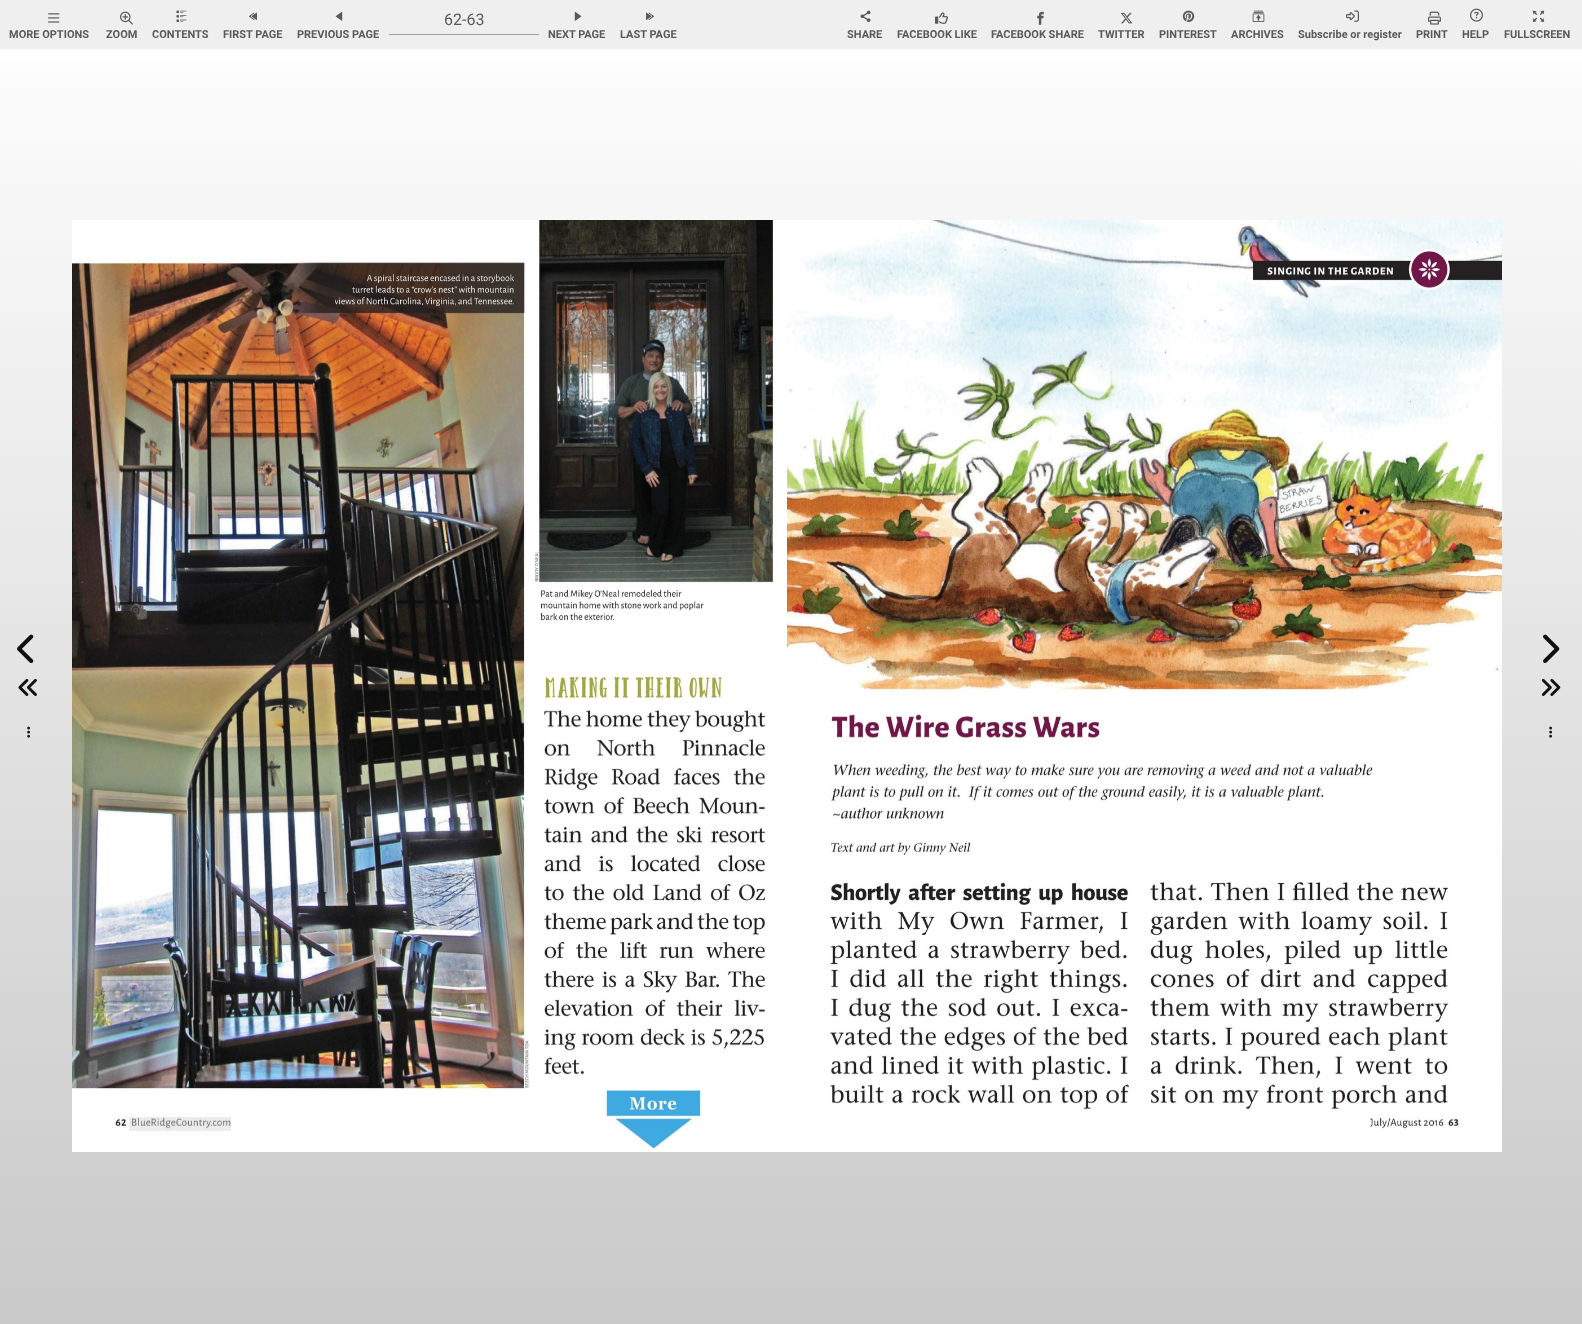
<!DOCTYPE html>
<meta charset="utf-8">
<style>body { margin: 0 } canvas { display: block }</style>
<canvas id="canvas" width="1582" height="1324"></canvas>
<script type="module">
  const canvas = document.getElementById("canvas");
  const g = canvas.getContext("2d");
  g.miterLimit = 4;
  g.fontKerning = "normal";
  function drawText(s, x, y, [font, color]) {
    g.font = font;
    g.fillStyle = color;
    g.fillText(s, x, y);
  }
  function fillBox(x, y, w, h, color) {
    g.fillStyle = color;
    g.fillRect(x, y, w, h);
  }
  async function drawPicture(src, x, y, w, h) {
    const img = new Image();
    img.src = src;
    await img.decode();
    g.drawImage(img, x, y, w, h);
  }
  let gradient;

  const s1 = ["bold 11px Roboto", "#5A5A5A"];
  const s2 = ["16px Roboto", "#5A5A5A"];

  fillBox(0, 0, 1582, 1324, "#FFFFFF");
  gradient = g.createLinearGradient(791, 0, 791, 1324);
  gradient.addColorStop(0, "#FFFFFF");
  gradient.addColorStop(1, "#C9C9C9");
  g.fillStyle = gradient;
  g.fillRect(0, 61, 1582, 1263);
  gradient = g.createLinearGradient(791, 0, 791, 1324);
  gradient.addColorStop(0, "#FFFFFF");
  gradient.addColorStop(1, "#FFFFFF");
  g.fillStyle = gradient;
  g.fillRect(787, 220, 715, 932);
  g.fillRect(72, 220, 715, 932);
  fillBox(0, 0, 1582, 49, "#EFEFEF");
  await drawPicture("pic1.png", 48, 13, 12, 10);
  drawText("MORE OPTIONS", 9, 38, s1);
  fillBox(389, 34, 150, 1, "#9E9E9E");
  drawText("62-63", 444, 25, s2);
  await drawPicture("pic2.png", 120, 11, 13, 14);
  drawText("ZOOM", 106, 38, s1);
  await drawPicture("pic3.png", 176, 10, 11, 12);
  drawText("CONTENTS", 152, 38, s1);
  await drawPicture("pic4.png", 249, 12, 8, 8);
  drawText("FIRST PAGE", 223, 38, s1);
  await drawPicture("pic5.png", 335, 11, 8, 10);
  drawText("PREVIOUS PAGE", 297, 38, s1);
  await drawPicture("pic6.png", 574, 11, 8, 10);
  drawText("NEXT PAGE", 548, 38, s1);
  await drawPicture("pic7.png", 646, 12, 8, 8);
  drawText("LAST PAGE", 620, 38, s1);
  await drawPicture("pic8.png", 860, 10, 11, 12);
  drawText("SHARE", 847, 38, s1);
  await drawPicture("pic9.png", 935, 12, 13, 12);
  drawText("FACEBOOK LIKE", 897, 38, s1);
  await drawPicture("pic10.png", 1037, 11, 7, 14);
  drawText("FACEBOOK SHARE", 991, 38, s1);
  await drawPicture("pic11.png", 1120, 12, 13, 12);
  drawText("TWITTER", 1098, 38, s1);
  await drawPicture("pic12.png", 1182, 10, 13, 12);
  drawText("PINTEREST", 1159, 38, s1);
  await drawPicture("pic13.png", 1252, 10, 13, 12);
  drawText("ARCHIVES", 1231, 38, s1);
  await drawPicture("pic14.png", 1346, 10, 13, 12);
  drawText("Subscribe or register", 1298, 38, s1);
  await drawPicture("pic15.png", 1428, 11, 13, 14);
  drawText("PRINT", 1416, 38, s1);
  await drawPicture("pic16.png", 1470, 8, 13, 14);
  drawText("HELP", 1462, 38, s1);
  await drawPicture("pic17.png", 1532, 10, 13, 12);
  drawText("FULLSCREEN", 1504, 38, s1);
  await drawPicture("pic18.png", 17, 634, 17, 29);
  await drawPicture("pic19.png", 18, 678, 19, 18);
  await drawPicture("pic20.png", 27, 726, 3, 12);
  await drawPicture("pic21.png", 72, 220, 674, 909);
  await drawPicture("pic22.png", 72, 220, 704, 930);
  await drawPicture("pic23.png", 72, 220, 705, 930);
  fillBox(129, 1117, 102, 14, "rgba(209, 209, 209, 0.4)");
  fillBox(423, 1151, 4, 1, "#FCFDF8");
  await drawPicture("pic26.png", 787, 260, 672, 869);
  await drawPicture("pic24.png", 787, 220, 715, 910);
  await drawPicture("pic25.png", 787, 220, 715, 909);
  await drawPicture("pic27.png", 1543, 634, 17, 29);
  await drawPicture("pic28.png", 1541, 678, 20, 18);
  await drawPicture("pic20.png", 1549, 726, 3, 12);
</script>
